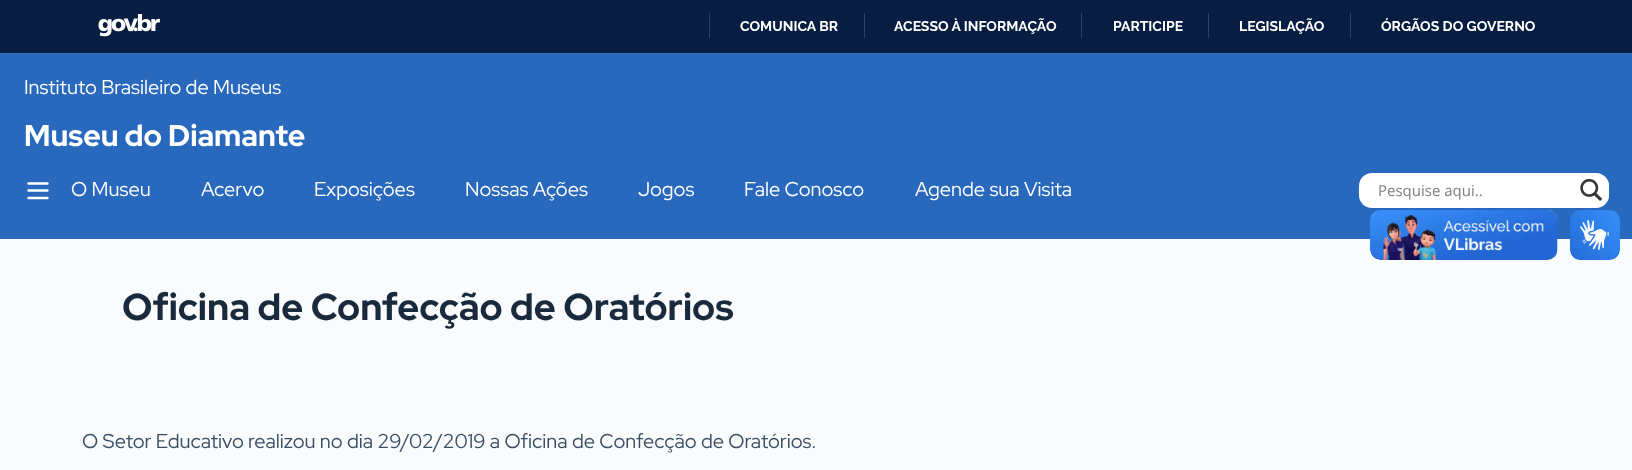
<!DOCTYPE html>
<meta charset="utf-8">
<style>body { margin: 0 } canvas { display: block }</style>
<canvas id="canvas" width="1632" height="470"></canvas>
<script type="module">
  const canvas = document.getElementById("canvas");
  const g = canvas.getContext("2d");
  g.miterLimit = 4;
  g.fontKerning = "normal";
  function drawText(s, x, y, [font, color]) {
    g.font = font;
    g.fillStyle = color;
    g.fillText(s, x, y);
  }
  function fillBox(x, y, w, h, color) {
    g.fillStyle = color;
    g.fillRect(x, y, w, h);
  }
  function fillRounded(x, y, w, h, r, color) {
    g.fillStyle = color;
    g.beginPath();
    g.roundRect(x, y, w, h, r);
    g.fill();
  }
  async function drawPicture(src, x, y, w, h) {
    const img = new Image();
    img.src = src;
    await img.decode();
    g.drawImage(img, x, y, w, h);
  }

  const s1 = ["bold 14px Raleway", "#FFFFFF"];
  const s2 = ["20px Red Hat Display", "#FFFFFF"];
  const s3 = ["bold 30px Red Hat Display", "#FFFFFF"];
  const s4 = ["15px Open Sans", "#7D7D7D"];
  const s5 = ["bold 37.5px Red Hat Display", "#192A3D"];
  const s6 = ["20px Red Hat Display", "#3A4F66"];

  fillBox(0, 0, 1632, 470, "#FAFBFC");
  fillBox(0, 0, 1632, 53, "#071D41");
  await drawPicture("pic1.png", 98, 14, 62, 23);
  fillBox(709, 13, 1, 25, "#32425B");
  drawText("COMUNICA BR", 740, 31, s1);
  fillBox(864, 13, 1, 25, "#32425B");
  drawText("ACESSO À INFORMAÇÃO", 894, 31, s1);
  fillBox(1081, 13, 1, 25, "#32425B");
  drawText("PARTICIPE", 1113, 31, s1);
  fillBox(1208, 13, 1, 25, "#32425B");
  drawText("LEGISLAÇÃO", 1239, 31, s1);
  fillBox(1350, 13, 1, 25, "#32425B");
  drawText("ÓRGÃOS DO GOVERNO", 1381, 31, s1);
  fillBox(0, 53, 1632, 186, "#2969BD");
  drawText("Instituto Brasileiro de Museus", 24, 94, s2);
  drawText("Museu do Diamante", 24, 146, s3);
  g.beginPath();
  g.moveTo(28.5, 183.5);
  g.lineTo(47.5, 183.5);
  g.moveTo(28.5, 190.5);
  g.lineTo(47.5, 190.5);
  g.moveTo(28.5, 198);
  g.lineTo(47.5, 198);
  g.strokeStyle = "#FFFFFF";
  g.lineWidth = 2.4;
  g.lineCap = "round";
  g.stroke();
  drawText("O Museu", 71, 196, s2);
  drawText("Acervo", 201, 196, s2);
  drawText("Exposições", 314, 196, s2);
  drawText("Nossas Ações", 465, 196, s2);
  drawText("Jogos", 638, 196, s2);
  drawText("Fale Conosco", 744, 196, s2);
  drawText("Agende sua Visita", 915, 196, s2);
  fillRounded(1359, 173, 250, 35, 13, "#FFFFFF");
  drawText("Pesquise aqui..", 1378, 196, s4);
  g.save();
  g.beginPath();
  g.rect(1574, 173, 35, 35);
  g.clip();
  g.fillStyle = "rgba(255, 255, 255, 0.64)";
  g.beginPath();
  g.moveTo(1572, 174);
  g.lineTo(1572, 208);
  g.lineTo(1450, 208);
  g.lineTo(1450, 173);
  g.lineTo(1596, 173);
  g.lineTo(1601, 174);
  g.closePath();
  g.moveTo(1608, 200);
  g.bezierCurveTo(1610, 196, 1610, 185, 1608, 181);
  g.closePath();
  g.fill("evenodd");
  g.restore();
  await drawPicture("pic2.png", 1580, 178, 23, 23);
  drawText("Oficina de Confecção de Oratórios", 122, 320, s5);
  drawText("O Setor Educativo realizou no dia 29/02/2019 a Oficina de Confecção de Oratórios.", 82, 448, s6);
  await drawPicture("pic3.png", 1370, 210, 188, 50);
  await drawPicture("pic4.png", 1570, 210, 50, 50);
</script>
